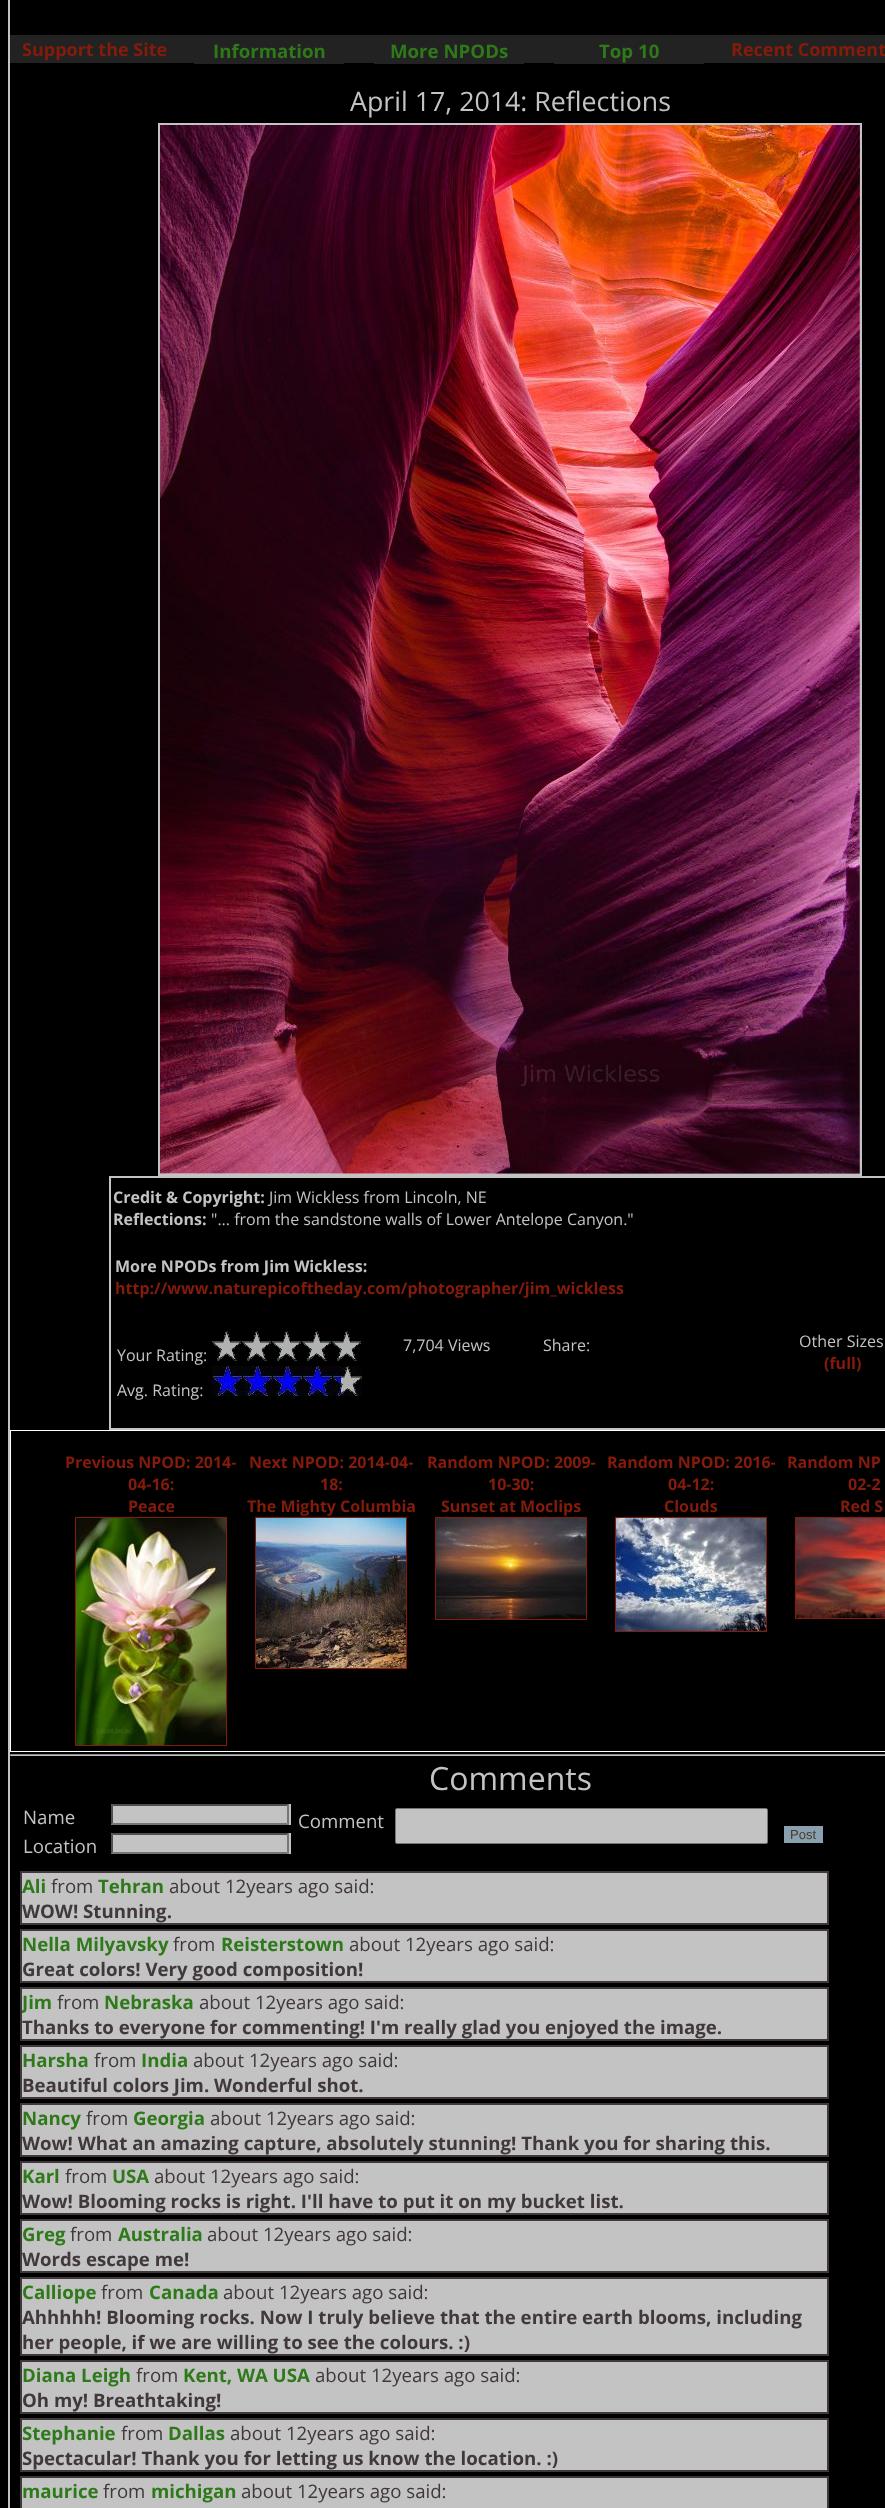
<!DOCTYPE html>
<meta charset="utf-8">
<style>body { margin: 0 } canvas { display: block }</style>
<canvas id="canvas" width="885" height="2508"></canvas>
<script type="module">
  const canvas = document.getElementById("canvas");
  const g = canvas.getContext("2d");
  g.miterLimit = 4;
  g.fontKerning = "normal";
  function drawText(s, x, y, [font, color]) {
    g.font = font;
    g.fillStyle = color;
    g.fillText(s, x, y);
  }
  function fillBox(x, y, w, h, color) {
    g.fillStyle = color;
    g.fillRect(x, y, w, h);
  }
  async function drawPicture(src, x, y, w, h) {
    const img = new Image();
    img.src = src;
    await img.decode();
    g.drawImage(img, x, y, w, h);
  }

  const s1 = ["bold 18px Open Sans", "#851C0B"];
  const s2 = ["bold 18.65px Open Sans", "#2E791A"];
  const s3 = ["26.75px Open Sans", "#C3C3C3"];
  const s4 = ["bold 16px Open Sans", "#C3C3C3"];
  const s5 = ["16px Open Sans", "#C3C3C3"];
  const s6 = ["bold 16px Open Sans", "#851C0B"];
  const s7 = ["32px Open Sans", "#C3C3C3"];
  const s8 = ["18.65px Open Sans", "#C3C3C3"];
  const s9 = ["13px Liberation Sans", "#463B31"];
  const s10 = ["18.65px Open Sans", "#41383C"];
  const s11 = ["bold 18.65px Open Sans", "#41383C"];

  fillBox(0, 0, 885, 2508, "#000000");
  g.strokeStyle = "#C3C3C3";
  g.lineWidth = 2;
  g.strokeRect(9, -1, 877, 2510);
  fillBox(10, 35, 875, 28, "#222222");
  drawText("Support the Site", 22, 56, s1);
  fillBox(194, 63, 150, 1, "#222222");
  drawText("Information", 213, 58, s2);
  fillBox(374, 63, 150, 1, "#222222");
  drawText("More NPODs", 390, 58, s2);
  fillBox(554, 63, 150, 1, "#222222");
  drawText("Top 10", 599, 58, s2);
  drawText("Recent Comment", 731, 56, s1);
  drawText("April 17, 2014: Reflections", 350, 111, s3);
  g.strokeRect(159, 124, 702, 1051);
  await drawPicture("pic1.png", 160, 125, 700, 1049);
  g.strokeRect(110, 1177, 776, 252);
  drawText("Credit & Copyright:", 113, 1203, s4);
  drawText("Jim Wickless from Lincoln, NE", 269, 1203, s5);
  drawText("Reflections:", 113, 1225, s4);
  drawText("\"... from the sandstone walls of Lower Antelope Canyon.\"", 211, 1225, s5);
  drawText("More NPODs from Jim Wickless:", 115, 1272, s4);
  drawText("http://www.naturepicoftheday.com/photographer/jim_wickless", 115, 1294, s6);
  drawText("7,704 Views", 403, 1351, s5);
  drawText("Share:", 543, 1351, s5);
  drawText("Other Sizes", 799, 1347, s5);
  drawText("(full)", 824, 1369, s6);
  drawText("Your Rating:", 117, 1361, s5);
  await drawPicture("pic2.png", 212, 1332, 14, 29);
  await drawPicture("pic3.png", 226, 1331, 15, 30);
  await drawPicture("pic2.png", 242, 1332, 14, 29);
  await drawPicture("pic3.png", 256, 1331, 15, 30);
  await drawPicture("pic2.png", 272, 1332, 14, 29);
  await drawPicture("pic3.png", 286, 1331, 15, 30);
  await drawPicture("pic2.png", 302, 1332, 14, 29);
  await drawPicture("pic3.png", 316, 1331, 15, 30);
  await drawPicture("pic2.png", 332, 1332, 14, 29);
  await drawPicture("pic3.png", 346, 1331, 15, 30);
  drawText("Avg. Rating:", 117, 1396, s5);
  await drawPicture("pic4.png", 212, 1366, 150, 30);
  g.strokeStyle = "#FFFFFF";
  g.lineWidth = 1;
  g.strokeRect(10.5, 1430.5, 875, 321);
  drawText("Previous NPOD: 2014-", 65, 1468, s6);
  drawText("04-16:", 128, 1490, s6);
  drawText("Peace", 128, 1512, s6);
  g.strokeStyle = "#851C0B";
  g.strokeRect(75.5, 1517.5, 151, 228);
  await drawPicture("pic5.png", 76, 1518, 150, 227);
  drawText("Next NPOD: 2014-04-", 249, 1468, s6);
  drawText("18:", 320, 1490, s6);
  drawText("The Mighty Columbia", 247, 1512, s6);
  g.strokeRect(255.5, 1517.5, 151, 151);
  await drawPicture("pic6.png", 256, 1518, 150, 150);
  drawText("Random NPOD: 2009-", 427, 1468, s6);
  drawText("10-30:", 488, 1490, s6);
  drawText("Sunset at Moclips", 441, 1512, s6);
  g.strokeRect(435.5, 1517.5, 151, 102);
  await drawPicture("pic7.png", 436, 1518, 150, 101);
  drawText("Random NPOD: 2016-", 607, 1468, s6);
  drawText("04-12:", 668, 1490, s6);
  drawText("Clouds", 664, 1512, s6);
  g.strokeRect(615.5, 1517.5, 151, 114);
  await drawPicture("pic8.png", 616, 1518, 150, 113);
  drawText("Random NP", 787, 1468, s6);
  drawText("02-2", 848, 1490, s6);
  drawText("Red S", 840, 1512, s6);
  g.strokeRect(795.5, 1517.5, 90, 101);
  await drawPicture("pic9.png", 796, 1518, 89, 100);
  fillBox(10, 1754, 875, 1, "#828282");
  fillBox(10, 1755, 875, 1, "#C3C3C3");
  fillBox(10, 1754, 1, 2, "#828282");
  drawText("Comments", 429, 1790, s7);
  drawText("Name", 23, 1824, s8);
  fillBox(111, 1804, 180, 21, "#C3C3C3");
  g.fillStyle = "#4F4F4F";
  g.beginPath();
  g.moveTo(111, 1804);
  g.lineTo(289, 1804);
  g.lineTo(287, 1806);
  g.lineTo(113, 1806);
  g.closePath();
  g.fill();
  g.fillStyle = "#767676";
  g.beginPath();
  g.moveTo(289, 1804);
  g.lineTo(289, 1825);
  g.lineTo(287, 1823);
  g.lineTo(287, 1806);
  g.closePath();
  g.fill();
  g.beginPath();
  g.moveTo(289, 1825);
  g.lineTo(111, 1825);
  g.lineTo(113, 1823);
  g.lineTo(287, 1823);
  g.closePath();
  g.fill();
  g.fillStyle = "#4F4F4F";
  g.beginPath();
  g.moveTo(111, 1825);
  g.lineTo(111, 1804);
  g.lineTo(113, 1806);
  g.lineTo(113, 1823);
  g.closePath();
  g.fill();
  drawText("Location", 23, 1853, s8);
  fillBox(111, 1833, 180, 21, "#C3C3C3");
  g.fillStyle = "#4F4F4F";
  g.beginPath();
  g.moveTo(111, 1833);
  g.lineTo(289, 1833);
  g.lineTo(287, 1835);
  g.lineTo(113, 1835);
  g.closePath();
  g.fill();
  g.fillStyle = "#767676";
  g.beginPath();
  g.moveTo(289, 1833);
  g.lineTo(289, 1854);
  g.lineTo(287, 1852);
  g.lineTo(287, 1835);
  g.closePath();
  g.fill();
  g.beginPath();
  g.moveTo(289, 1854);
  g.lineTo(111, 1854);
  g.lineTo(113, 1852);
  g.lineTo(287, 1852);
  g.closePath();
  g.fill();
  g.fillStyle = "#4F4F4F";
  g.beginPath();
  g.moveTo(111, 1854);
  g.lineTo(111, 1833);
  g.lineTo(113, 1835);
  g.lineTo(113, 1852);
  g.closePath();
  g.fill();
  drawText("Comment", 298, 1828, s8);
  g.beginPath();
  g.roundRect(395.5, 1808.5, 372, 35, 1.5);
  g.fill();
  g.strokeStyle = "#767676";
  g.stroke();
  fillBox(784, 1826, 39, 17, "#8AA0AF");
  drawText("Post", 790, 1839, s9);
  g.fillStyle = "#C3C3C3";
  g.beginPath();
  g.rect(21, 1872, 807, 52);
  g.fill();
  g.strokeStyle = "#41383C";
  g.lineWidth = 2;
  g.stroke();
  drawText("Ali", 22, 1893, s2);
  drawText("from", 51, 1893, s10);
  drawText("Tehran", 98, 1893, s2);
  drawText("about 12years ago said:", 169, 1893, s10);
  drawText("WOW! Stunning.", 22, 1918, s11);
  g.fillStyle = "#C3C3C3";
  g.beginPath();
  g.rect(21, 1930, 807, 52);
  g.fill();
  g.stroke();
  drawText("Nella Milyavsky", 22, 1951, s2);
  drawText("from", 173, 1951, s10);
  drawText("Reisterstown", 221, 1951, s2);
  drawText("about 12years ago said:", 349, 1951, s10);
  drawText("Great colors! Very good composition!", 22, 1976, s11);
  g.fillStyle = "#C3C3C3";
  g.beginPath();
  g.rect(21, 1988, 807, 52);
  g.fill();
  g.stroke();
  g.save();
  g.beginPath();
  g.rect(22, 1989, 805, 50);
  g.clip();
  drawText("Jim", 22, 2009, s2);
  g.restore();
  drawText("from", 57, 2009, s10);
  drawText("Nebraska", 104, 2009, s2);
  drawText("about 12years ago said:", 199, 2009, s10);
  drawText("Thanks to everyone for commenting! I'm really glad you enjoyed the image.", 22, 2034, s11);
  g.fillStyle = "#C3C3C3";
  g.beginPath();
  g.rect(21, 2046, 807, 52);
  g.fill();
  g.stroke();
  drawText("Harsha", 22, 2067, s2);
  drawText("from", 94, 2067, s10);
  drawText("India", 141, 2067, s2);
  drawText("about 12years ago said:", 193, 2067, s10);
  drawText("Beautiful colors Jim. Wonderful shot.", 22, 2092, s11);
  g.fillStyle = "#C3C3C3";
  g.beginPath();
  g.rect(21, 2104, 807, 52);
  g.fill();
  g.stroke();
  drawText("Nancy", 22, 2125, s2);
  drawText("from", 86, 2125, s10);
  drawText("Georgia", 133, 2125, s2);
  drawText("about 12years ago said:", 210, 2125, s10);
  drawText("Wow! What an amazing capture, absolutely stunning! Thank you for sharing this.", 22, 2150, s11);
  g.fillStyle = "#C3C3C3";
  g.beginPath();
  g.rect(21, 2162, 807, 52);
  g.fill();
  g.stroke();
  drawText("Karl", 22, 2183, s2);
  drawText("from", 65, 2183, s10);
  drawText("USA", 112, 2183, s2);
  drawText("about 12years ago said:", 154, 2183, s10);
  drawText("Wow! Blooming rocks is right. I'll have to put it on my bucket list.", 22, 2208, s11);
  g.fillStyle = "#C3C3C3";
  g.beginPath();
  g.rect(21, 2220, 807, 52);
  g.fill();
  g.stroke();
  drawText("Greg", 22, 2241, s2);
  drawText("from", 70, 2241, s10);
  drawText("Australia", 118, 2241, s2);
  drawText("about 12years ago said:", 207, 2241, s10);
  drawText("Words escape me!", 22, 2266, s11);
  g.fillStyle = "#C3C3C3";
  g.beginPath();
  g.rect(21, 2278, 807, 77);
  g.fill();
  g.stroke();
  drawText("Calliope", 22, 2299, s2);
  drawText("from", 101, 2299, s10);
  drawText("Canada", 149, 2299, s2);
  drawText("about 12years ago said:", 223, 2299, s10);
  drawText("Ahhhhh! Blooming rocks. Now I truly believe that the entire earth blooms, including", 22, 2324, s11);
  drawText("her people, if we are willing to see the colours. :)", 22, 2349, s11);
  g.fillStyle = "#C3C3C3";
  g.beginPath();
  g.rect(21, 2361, 807, 52);
  g.fill();
  g.stroke();
  drawText("Diana Leigh", 22, 2382, s2);
  drawText("from", 136, 2382, s10);
  drawText("Kent, WA USA", 183, 2382, s2);
  drawText("about 12years ago said:", 315, 2382, s10);
  drawText("Oh my! Breathtaking!", 22, 2407, s11);
  g.fillStyle = "#C3C3C3";
  g.beginPath();
  g.rect(21, 2419, 807, 52);
  g.fill();
  g.stroke();
  drawText("Stephanie", 22, 2440, s2);
  drawText("from", 121, 2440, s10);
  drawText("Dallas", 168, 2440, s2);
  drawText("about 12years ago said:", 230, 2440, s10);
  drawText("Spectacular! Thank you for letting us know the location. :)", 22, 2465, s11);
  g.fillStyle = "#C3C3C3";
  g.beginPath();
  g.rect(21, 2477, 807, 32);
  g.fill();
  g.stroke();
  drawText("maurice", 22, 2498, s2);
  drawText("from", 103, 2498, s10);
  drawText("michigan", 151, 2498, s2);
  drawText("about 12years ago said:", 241, 2498, s10);
</script>
